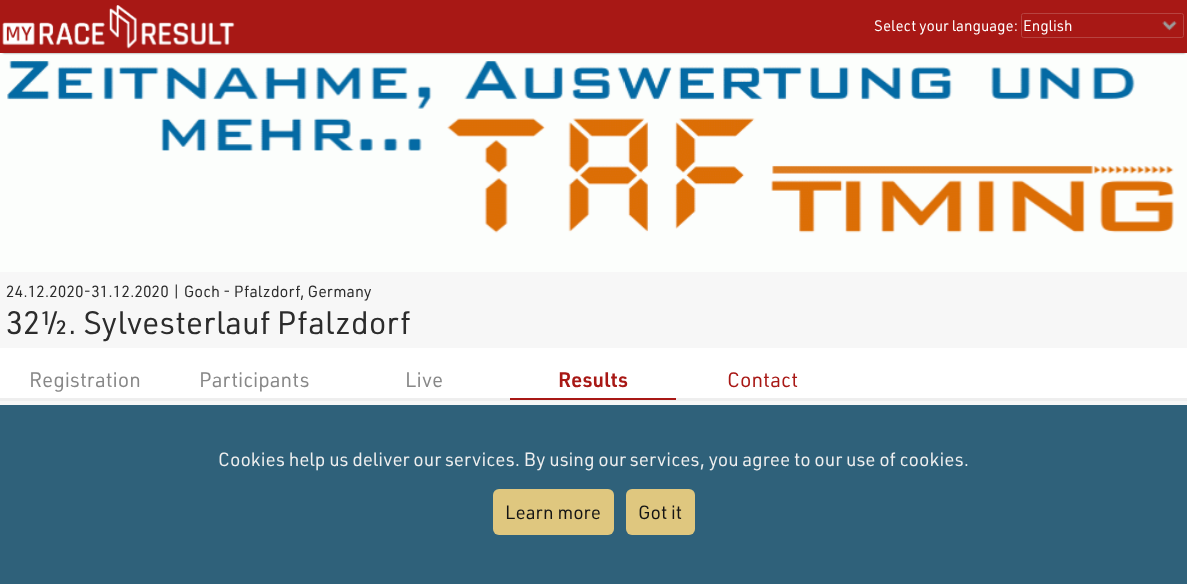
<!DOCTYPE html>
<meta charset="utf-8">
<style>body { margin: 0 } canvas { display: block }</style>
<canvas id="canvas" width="1187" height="584"></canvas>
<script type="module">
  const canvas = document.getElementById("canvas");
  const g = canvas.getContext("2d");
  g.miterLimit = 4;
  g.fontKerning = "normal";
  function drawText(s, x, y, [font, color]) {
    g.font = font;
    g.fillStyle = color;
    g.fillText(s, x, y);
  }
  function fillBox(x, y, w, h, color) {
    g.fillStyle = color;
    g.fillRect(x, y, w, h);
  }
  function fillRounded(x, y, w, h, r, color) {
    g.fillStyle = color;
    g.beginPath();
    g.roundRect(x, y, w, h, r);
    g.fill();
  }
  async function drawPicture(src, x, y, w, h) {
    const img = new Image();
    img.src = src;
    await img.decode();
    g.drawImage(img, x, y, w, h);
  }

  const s1 = ["15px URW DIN", "#FFFFFF"];
  const s2 = ["15.9px URW DIN", "#2C2C2C"];
  const s3 = ["31.9px URW DIN", "#2C2C2C"];
  const s4 = ["20.5px URW DIN", "#888888"];
  const s5 = ["600 20.5px URW DIN", "#A81815"];
  const s6 = ["20.5px URW DIN", "#A81815"];
  const s7 = ["18.75px URW DIN", "#EFEFEF"];
  const s8 = ["18.75px URW DIN", "#141414"];

  fillBox(0, 0, 1187, 584, "#F7F7F7");
  await drawPicture("pic3.png", 0, 53, 1187, 219);
  g.fillStyle = "rgba(0, 0, 0, 0.52)";
  g.filter = "blur(1px)";
  g.beginPath();
  g.rect(3, 5, 1182, 48);
  g.fill();
  g.filter = "none";
  fillBox(0, 0, 1187, 53, "#A81815");
  await drawPicture("pic1.png", 2, 5, 233, 44);
  drawText("Select your language:", 874, 31, s1);
  await drawPicture("pic2.png", 1162, 21, 15, 10);
  g.beginPath();
  g.roundRect(1021.5, 13.5, 162, 24, 2);
  g.strokeStyle = "#B74340";
  g.stroke();
  drawText("English", 1023, 31, s1);
  drawText("24.12.2020-31.12.2020 | Goch - Pfalzdorf, Germany", 6, 297, s2);
  drawText("32½. Sylvesterlauf Pfalzdorf", 6, 334, s3);
  fillBox(0, 348, 1187, 50, "#FFFFFF");
  fillBox(0, 398, 1187, 3, "#EEEEEE");
  drawText("Registration", 29, 387, s4);
  drawText("Participants", 199, 387, s4);
  drawText("Live", 405, 387, s4);
  fillBox(510, 398, 166, 2, "#A81815");
  drawText("Results", 558, 387, s5);
  drawText("Contact", 727, 387, s6);
  fillBox(0, 405, 1187, 179, "#2F617A");
  drawText("Cookies help us deliver our services. By using our services, you agree to our use of cookies.", 218, 466, s7);
  fillRounded(493, 489, 121, 46, 6, "#DFC77F");
  drawText("Learn more", 505, 519, s8);
  fillRounded(626, 489, 69, 46, 6, "#DFC77F");
  drawText("Got it", 638, 519, s8);
</script>
